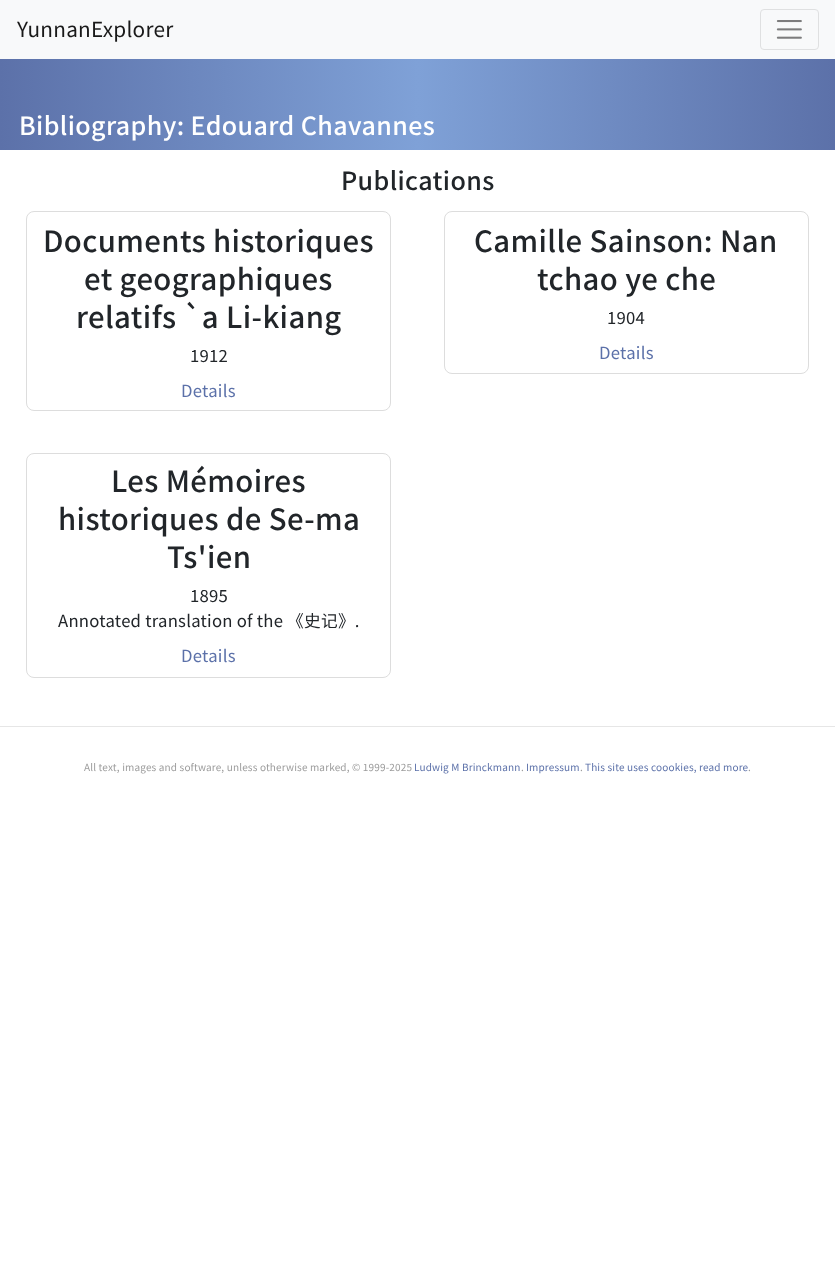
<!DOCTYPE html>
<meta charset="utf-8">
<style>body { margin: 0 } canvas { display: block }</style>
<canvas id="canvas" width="835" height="1275"></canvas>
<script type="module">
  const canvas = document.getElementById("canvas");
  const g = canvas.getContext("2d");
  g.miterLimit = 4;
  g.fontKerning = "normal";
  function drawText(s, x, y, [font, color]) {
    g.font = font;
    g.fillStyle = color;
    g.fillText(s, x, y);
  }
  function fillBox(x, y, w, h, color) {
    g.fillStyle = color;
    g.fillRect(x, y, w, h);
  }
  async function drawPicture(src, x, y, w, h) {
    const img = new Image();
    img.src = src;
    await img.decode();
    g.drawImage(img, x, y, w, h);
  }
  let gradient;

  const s1 = ["20.75px Noto Sans CJK SC", "#191919"];
  const s2 = ["500 25px Noto Sans CJK SC", "#FFFFFF"];
  const s3 = ["500 25px Noto Sans CJK SC", "#212529"];
  const s4 = ["500 29.25px Noto Sans CJK SC", "#212529"];
  const s5 = ["16.7px Noto Sans CJK SC", "#212529"];
  const s6 = ["16.7px Noto Sans CJK SC", "#5C71A9"];
  const s7 = ["10px Noto Sans CJK SC", "#9C9C9C"];
  const s8 = ["10px Noto Sans CJK SC", "#5C71A9"];

  fillBox(0, 0, 835, 1275, "#FFFFFF");
  fillBox(0, 0, 835, 59, "#F8F9FA");
  g.letterSpacing = "0.25px";
  drawText("YunnanExplorer", 17, 37, s1);
  g.beginPath();
  g.roundRect(760.5, 9.5, 58, 40, 3.5);
  g.strokeStyle = "#DFE0E1";
  g.stroke();
  await drawPicture("pic1.png", 776, 20, 26, 19);
  gradient = g.createLinearGradient(0, 104, 835, 104);
  gradient.addColorStop(0, "#5C71A9");
  gradient.addColorStop(0.5, "#7FA1D7");
  gradient.addColorStop(1, "#5C71A9");
  g.fillStyle = gradient;
  g.fillRect(0, 59, 835, 91);
  g.letterSpacing = "0.4px";
  drawText("Bibliography: Edouard Chavannes", 19, 135, s2);
  drawText("Publications", 341, 190, s3);
  g.beginPath();
  g.roundRect(26.5, 211.5, 364, 199, 7.5);
  g.strokeStyle = "#DDDDDD";
  g.stroke();
  drawText("Documents historiques", 43, 252, s4);
  drawText("et geographiques", 84, 290, s4);
  drawText("relatifs `a Li-kiang", 76, 328, s4);
  g.letterSpacing = "0.25px";
  drawText("1912", 190, 362, s5);
  drawText("Details", 181, 397, s6);
  g.beginPath();
  g.roundRect(444.5, 211.5, 364, 162, 7.5);
  g.stroke();
  g.letterSpacing = "0.4px";
  drawText("Camille Sainson: Nan", 474, 252, s4);
  drawText("tchao ye che", 537, 290, s4);
  g.letterSpacing = "0.25px";
  drawText("1904", 607, 324, s5);
  drawText("Details", 599, 359, s6);
  g.beginPath();
  g.roundRect(26.5, 453.5, 364, 224, 7.5);
  g.stroke();
  g.letterSpacing = "0.4px";
  drawText("Les Mémoires", 111, 492, s4);
  drawText("historiques de Se-ma", 58, 530, s4);
  drawText("Ts'ien", 167, 568, s4);
  g.letterSpacing = "0.25px";
  drawText("1895", 190, 602, s5);
  drawText("Annotated translation of the 《史记》.", 58, 627, s5);
  drawText("Details", 181, 662, s6);
  fillBox(0, 726, 835, 1, "#E6E6E6");
  g.letterSpacing = "0.15px";
  drawText("All text, images and software, unless otherwise marked, © 1999-2025", 84, 771, s7);
  drawText("Ludwig M Brinckmann", 414, 771, s8);
  drawText(".", 521, 771, s7);
  drawText("Impressum", 526, 771, s8);
  drawText(".", 580, 771, s7);
  drawText("This site uses coookies, read more", 585, 771, s8);
  drawText(".", 748, 771, s7);
</script>
